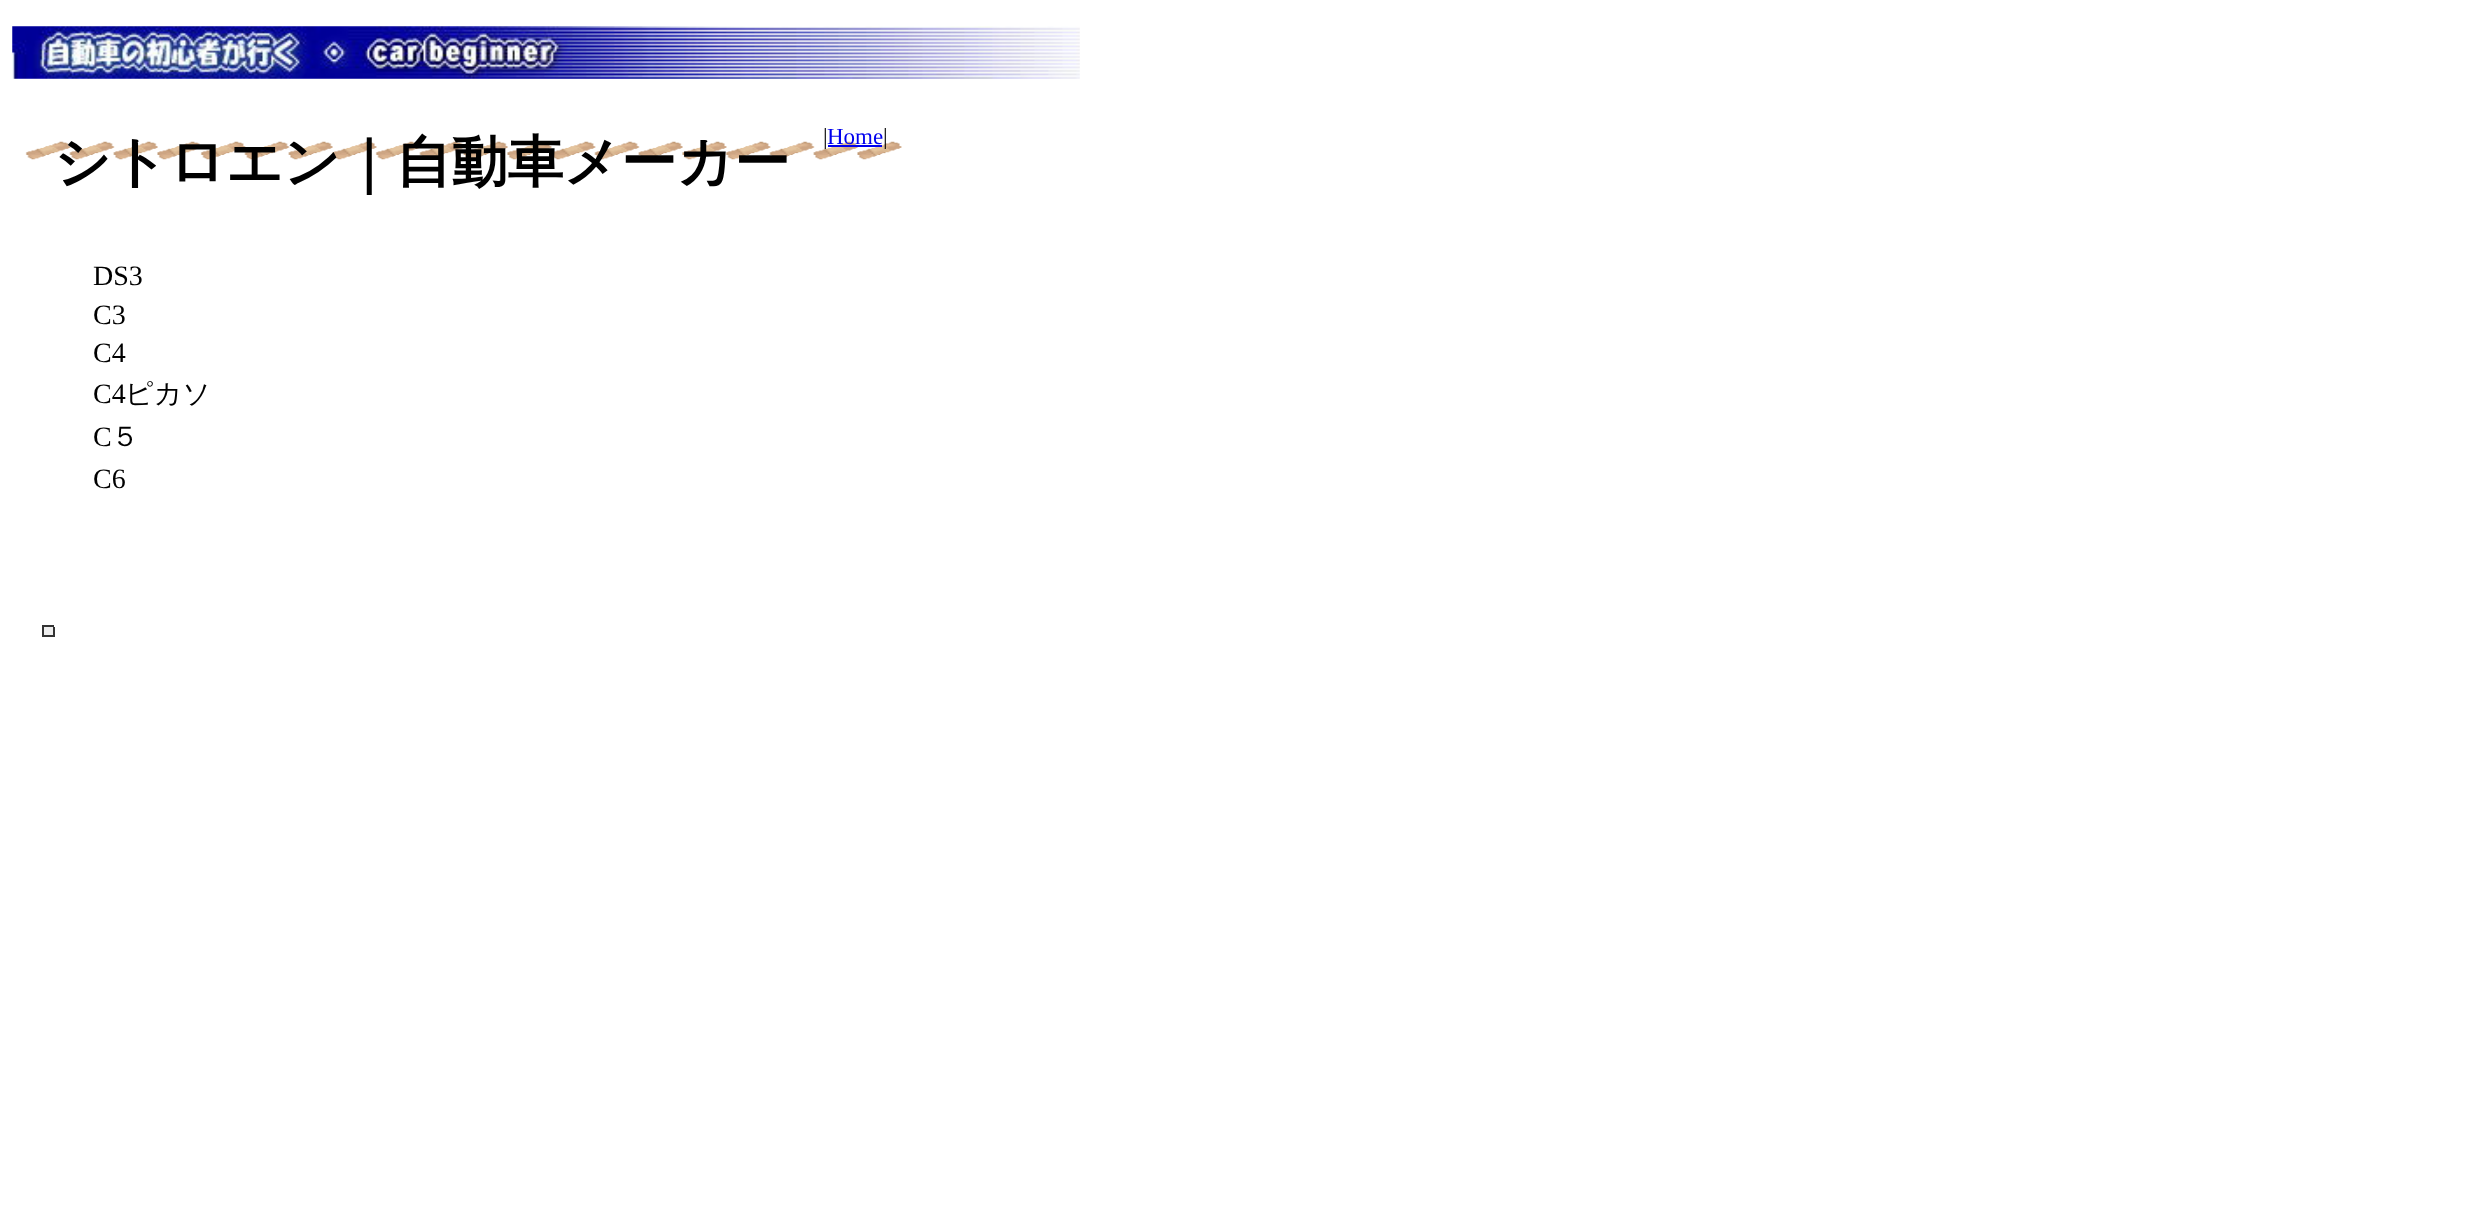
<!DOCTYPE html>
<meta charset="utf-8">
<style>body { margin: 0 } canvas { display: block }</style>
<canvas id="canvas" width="2465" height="1227"></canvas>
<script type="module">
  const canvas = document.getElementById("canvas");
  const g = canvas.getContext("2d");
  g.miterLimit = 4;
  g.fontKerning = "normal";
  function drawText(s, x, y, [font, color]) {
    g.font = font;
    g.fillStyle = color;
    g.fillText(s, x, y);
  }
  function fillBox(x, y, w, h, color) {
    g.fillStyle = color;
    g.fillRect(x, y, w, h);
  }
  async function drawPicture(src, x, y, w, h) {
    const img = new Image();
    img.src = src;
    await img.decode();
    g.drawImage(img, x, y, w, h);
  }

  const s1 = ["bold 56px WenQuanYi Zen Hei", "#000000"];
  const s2 = ["23px Liberation Serif", "#000000"];
  const s3 = ["23px Liberation Serif", "#0000EE"];
  const s4 = ["28px Liberation Serif", "#000000"];
  const s5 = ["500 28px WenQuanYi Zen Hei", "#000000"];

  fillBox(0, 0, 2465, 1227, "#FFFFFF");
  await drawPicture("pic1.png", 12, 26, 1068, 53);
  await drawPicture("pic2.png", 25, 141, 877, 19);
  drawText("シトロエン｜自動車メーカー", 54, 181, s1);
  drawText("|", 823, 144, s2);
  fillBox(828, 145, 54, 2, "#0000EE");
  drawText("Home", 827, 144, s3);
  drawText("|", 883, 144, s2);
  drawText("DS3", 93, 285, s4);
  drawText("C3", 93, 324, s4);
  drawText("C4", 93, 362, s4);
  drawText("C4", 93, 403, s4);
  drawText("ピカソ", 125, 403, s5);
  drawText("C", 93, 446, s4);
  drawText("５", 111, 446, s5);
  drawText("C6", 93, 488, s4);
  fillBox(44, 635, 9, 2, "#333333");
  fillBox(42, 625, 12, 2, "#333333");
  fillBox(42, 625, 2, 12, "#333333");
  fillBox(44, 627, 9, 8, "#EEEEEE");
  fillBox(53, 627, 2, 10, "#333333");
</script>
